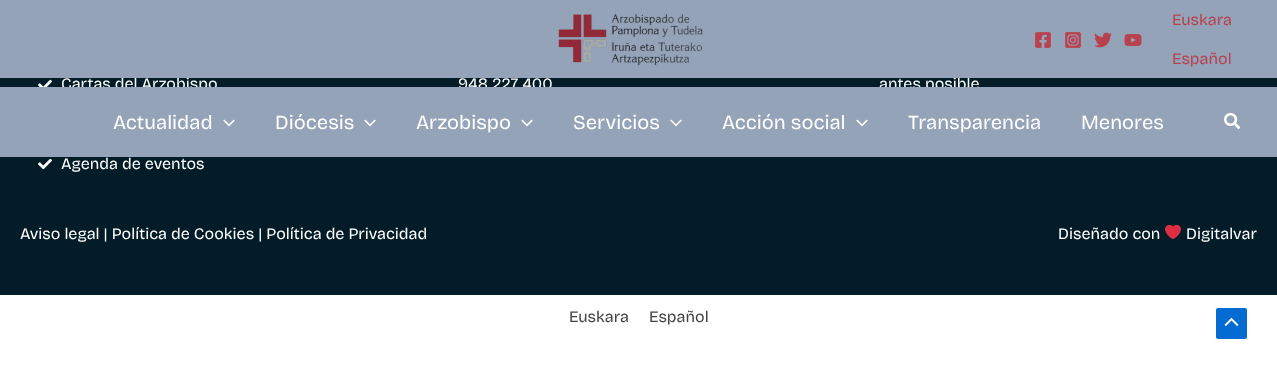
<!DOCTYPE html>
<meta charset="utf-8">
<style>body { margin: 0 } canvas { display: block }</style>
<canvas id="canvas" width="1277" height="369"></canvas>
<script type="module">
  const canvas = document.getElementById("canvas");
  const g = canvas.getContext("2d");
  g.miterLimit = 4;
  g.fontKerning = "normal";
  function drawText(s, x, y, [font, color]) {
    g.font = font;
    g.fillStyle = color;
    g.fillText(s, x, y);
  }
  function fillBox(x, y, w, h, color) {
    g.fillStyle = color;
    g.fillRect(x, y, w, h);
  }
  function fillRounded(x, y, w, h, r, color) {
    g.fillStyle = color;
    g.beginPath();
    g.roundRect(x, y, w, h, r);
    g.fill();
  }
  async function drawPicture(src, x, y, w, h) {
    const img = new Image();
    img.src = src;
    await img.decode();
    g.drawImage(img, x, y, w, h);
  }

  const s1 = ["800 16px Bricolage Grotesque", "#FFFFFF"];
  const s2 = ["800 16px Bricolage Grotesque", "#B9414E"];
  const s3 = ["800 20px Bricolage Grotesque", "#FFFFFF"];
  const s4 = ["800 16px Bricolage Grotesque", "#444444"];

  fillBox(0, 0, 1277, 369, "#FFFFFF");
  fillBox(0, 78, 1277, 217, "#031C27");
  drawText("Cartas del Arzobispo", 61, 89, s1);
  drawText("antes posible", 879, 89, s1);
  fillBox(0, 0, 1277, 78, "#94A3B8");
  await drawPicture("pic1.png", 558, 14, 145, 52);
  await drawPicture("pic2.png", 1035, 32, 16, 16);
  await drawPicture("pic3.png", 1065, 32, 16, 16);
  await drawPicture("pic4.png", 1094, 32, 18, 16);
  await drawPicture("pic5.png", 1124, 34, 18, 12);
  drawText("Euskara", 1172, 25, s2);
  drawText("Español", 1172, 64, s2);
  drawText("948 227 400", 458, 89, s1);
  fillBox(0, 87, 1277, 70, "#94A3B8");
  drawText("Actualidad", 113, 129, s3);
  await drawPicture("pic6.png", 223, 119, 12, 8);
  drawText("Diócesis", 275, 129, s3);
  await drawPicture("pic6.png", 364, 119, 12, 8);
  drawText("Arzobispo", 416, 129, s3);
  await drawPicture("pic6.png", 521, 119, 12, 8);
  drawText("Servicios", 573, 129, s3);
  await drawPicture("pic6.png", 670, 119, 12, 8);
  drawText("Acción social", 722, 129, s3);
  await drawPicture("pic6.png", 856, 119, 12, 8);
  drawText("Transparencia", 908, 129, s3);
  drawText("Menores", 1081, 129, s3);
  await drawPicture("pic7.png", 1224, 112, 16, 17);
  await drawPicture("pic8.png", 38, 79, 14, 8);
  await drawPicture("pic9.png", 38, 158, 14, 12);
  drawText("Agenda de eventos", 61, 169, s1);
  drawText("Aviso legal | Política de Cookies | Política de Privacidad", 20, 239, s1);
  drawText("Diseñado con", 1058, 239, s1);
  await drawPicture("pic10.png", 1165, 224, 16, 15);
  drawText("Digitalvar", 1186, 239, s1);
  drawText("Euskara", 569, 322, s4);
  drawText("Español", 649, 322, s4);
  fillRounded(1216, 308, 31, 31, 2, "#046BD2");
  await drawPicture("pic11.png", 1224, 317, 15, 9);
</script>
